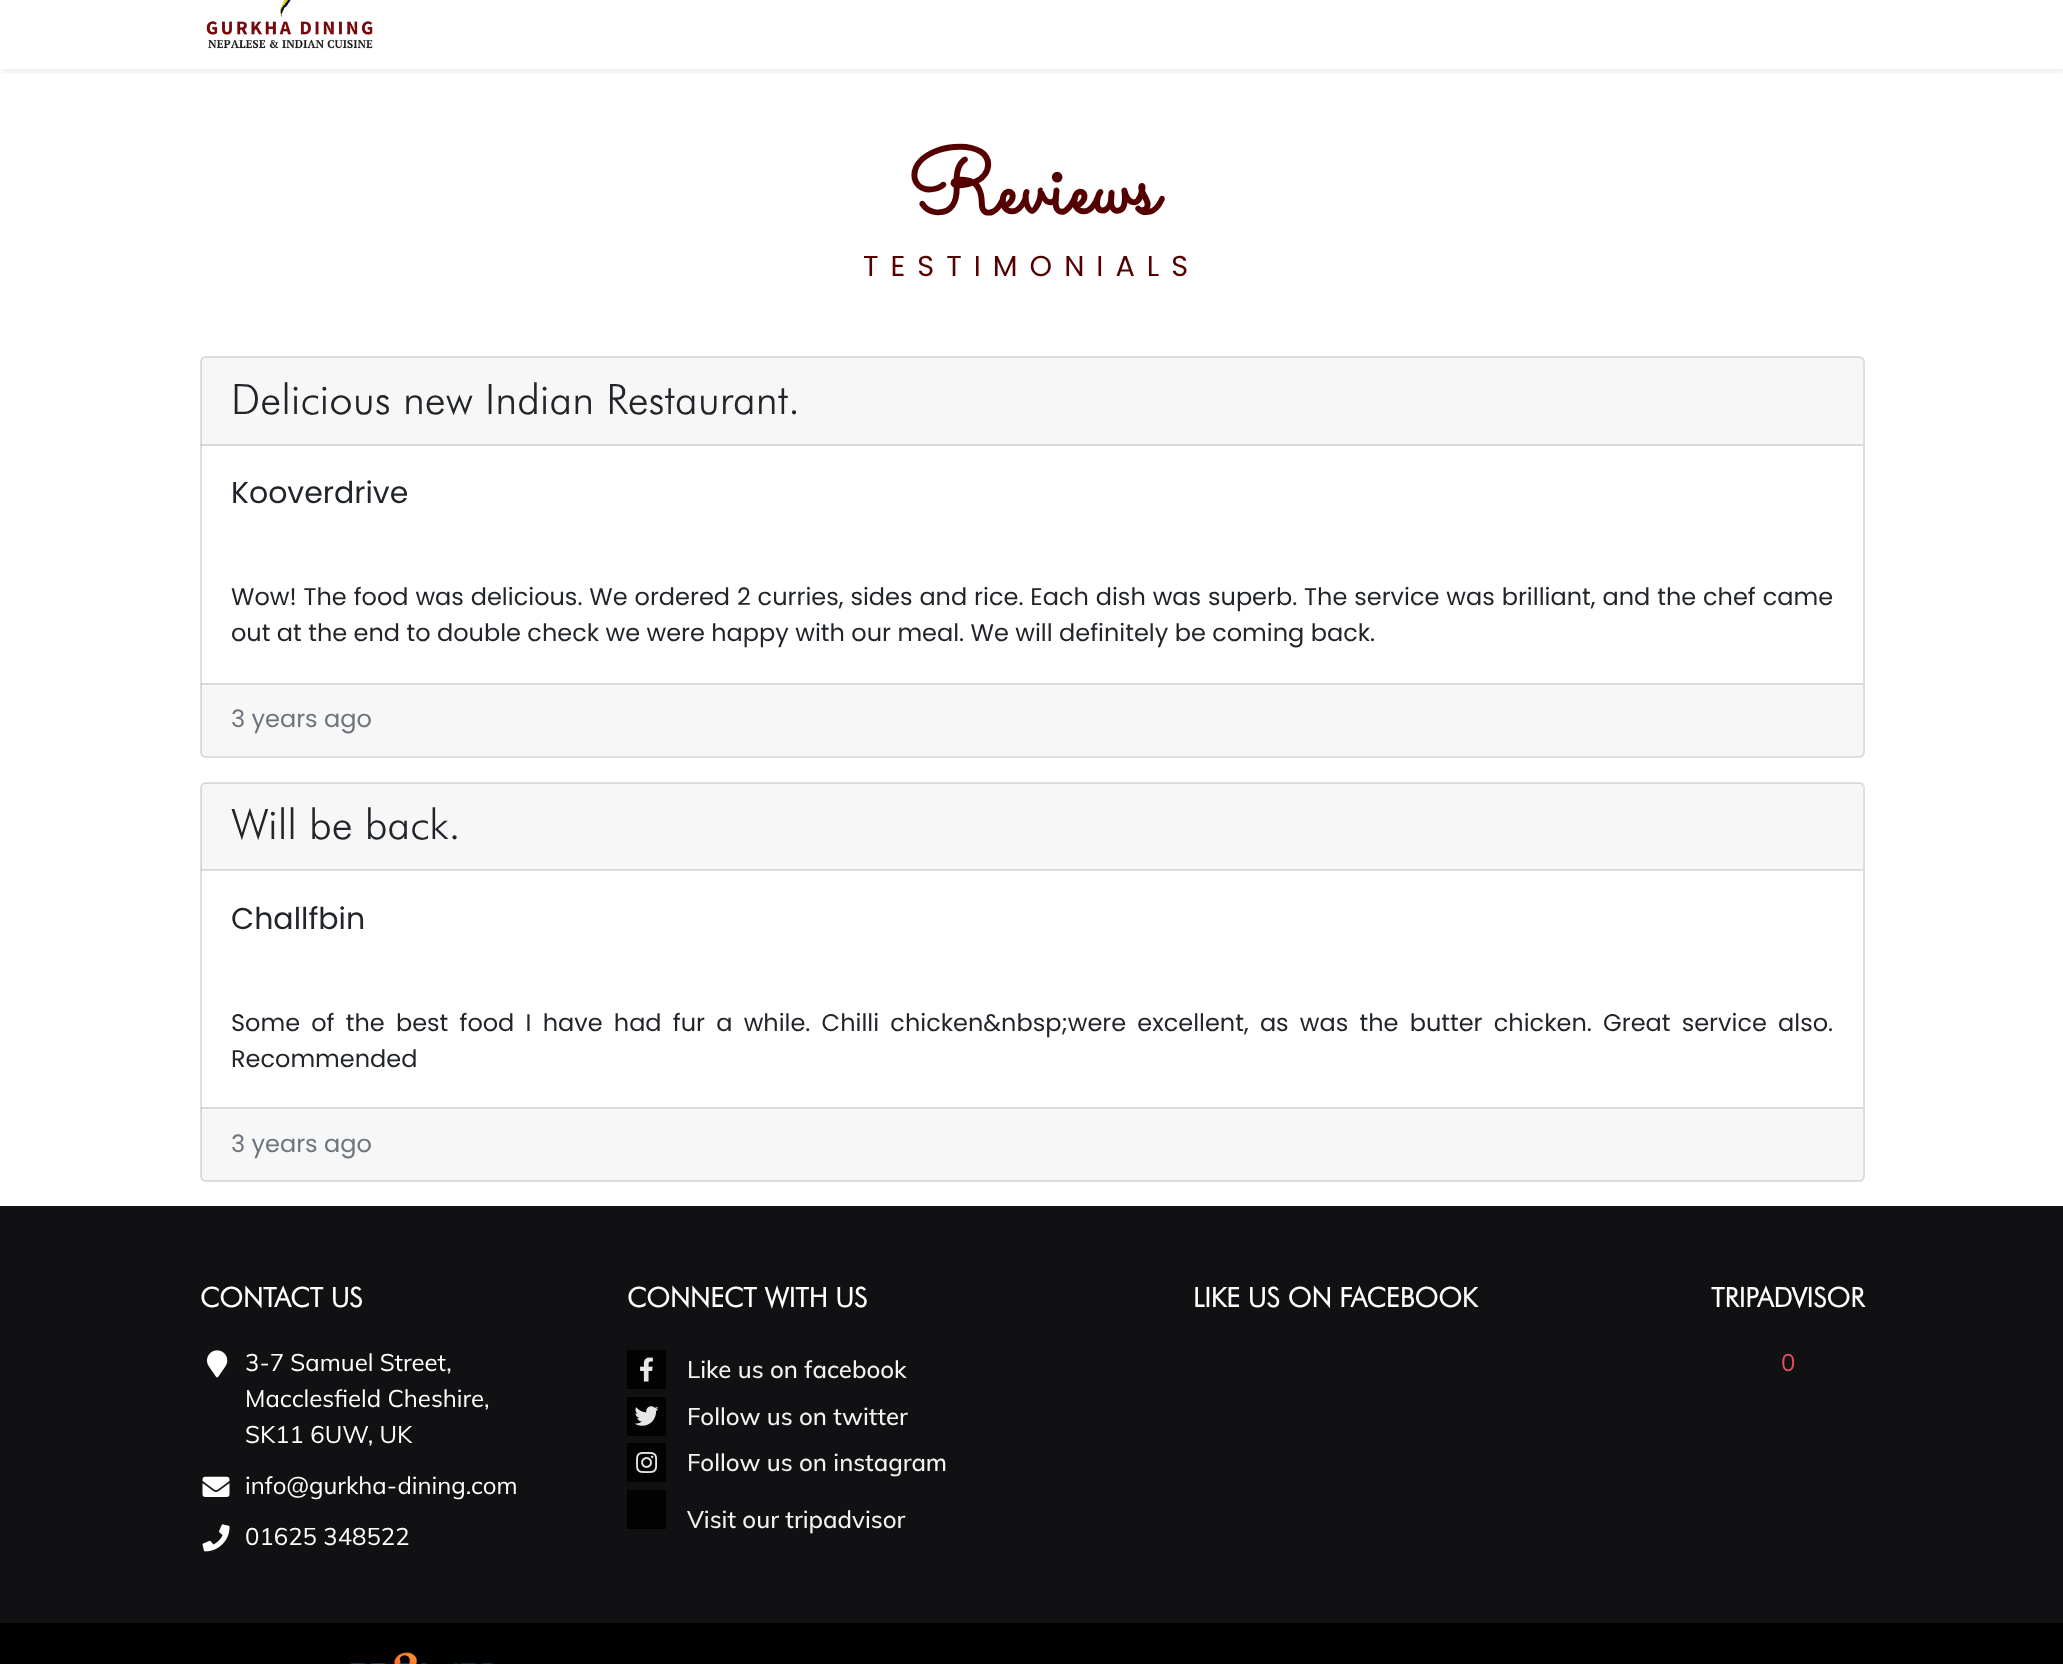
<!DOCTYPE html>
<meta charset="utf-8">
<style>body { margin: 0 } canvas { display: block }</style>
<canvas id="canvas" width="2063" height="1664"></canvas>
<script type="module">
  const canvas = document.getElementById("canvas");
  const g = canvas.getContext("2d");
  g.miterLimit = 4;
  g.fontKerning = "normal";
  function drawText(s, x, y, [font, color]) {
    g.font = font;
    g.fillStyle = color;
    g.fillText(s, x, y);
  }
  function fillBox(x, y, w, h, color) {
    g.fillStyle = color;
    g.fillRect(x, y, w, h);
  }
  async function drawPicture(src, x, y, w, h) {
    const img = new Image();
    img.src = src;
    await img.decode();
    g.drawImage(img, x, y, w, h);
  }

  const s1 = ["bold 90px Sacramento", "#540000"];
  const s2 = ["28.75px Poppins", "#540000"];
  const s3 = ["300 42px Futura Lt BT", "#212529"];
  const s4 = ["30px Poppins", "#212529"];
  const s5 = ["24px Poppins", "#212529"];
  const s6 = ["24px Poppins", "#6C757D"];
  const s7 = ["bold 27px Futura Lt BT", "#FFFFFF"];
  const s8 = ["24px Muli", "#FFFFFF"];
  const s9 = ["500 24px Muli", "#F3F3F3"];
  const s10 = ["24px Muli", "#E64D5C"];

  fillBox(0, 0, 2063, 1664, "#FFFFFF");
  g.save();
  g.beginPath();
  g.rect(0, 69, 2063, 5);
  g.clip();
  g.fillStyle = "rgba(0, 0, 0, 0.07)";
  g.filter = "blur(3px)";
  g.beginPath();
  g.rect(0, -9, 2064, 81);
  g.fill();
  g.filter = "none";
  g.restore();
  await drawPicture("pic1.png", 206, 0, 167, 49);
  drawText("Reviews", 907, 213, s1);
  g.letterSpacing = "12px";
  drawText("TESTIMONIALS", 863, 276, s2);
  g.beginPath();
  g.roundRect(201, 357, 1663, 400, 5);
  g.strokeStyle = "#DFDFDF";
  g.lineWidth = 2;
  g.stroke();
  fillBox(201, 357, 1662, 89, "rgba(0, 0, 0, 0.03)");
  fillBox(201, 444, 1662, 2, "rgba(0, 0, 0, 0.12)");
  g.letterSpacing = "0px";
  drawText("Delicious new Indian Restaurant.", 231, 414, s3);
  drawText("Kooverdrive", 231, 503, s4);
  g.wordSpacing = "0.5px";
  drawText("Wow! The food was delicious. We ordered 2 curries, sides and rice. Each dish was superb. The service was brilliant, and the chef came", 231, 605, s5);
  g.wordSpacing = "0px";
  drawText("out at the end to double check we were happy with our meal. We will definitely be coming back.", 231, 641, s5);
  fillBox(201, 683, 1662, 73, "rgba(0, 0, 0, 0.03)");
  fillBox(201, 683, 1662, 2, "rgba(0, 0, 0, 0.12)");
  drawText("3 years ago", 231, 727, s6);
  g.beginPath();
  g.roundRect(201, 783, 1663, 398, 5);
  g.stroke();
  fillBox(201, 783, 1662, 87, "rgba(0, 0, 0, 0.03)");
  fillBox(201, 869, 1662, 2, "rgba(0, 0, 0, 0.12)");
  drawText("Will be back.", 231, 839, s3);
  drawText("Challfbin", 231, 929, s4);
  g.wordSpacing = "4.8px";
  drawText("Some of the best food I have had fur a while. Chilli chicken&nbsp;were excellent, as was the butter chicken. Great service also.", 231, 1031, s5);
  g.wordSpacing = "0px";
  drawText("Recommended", 231, 1067, s5);
  fillBox(201, 1107, 1662, 74, "rgba(0, 0, 0, 0.03)");
  fillBox(201, 1107, 1662, 2, "rgba(0, 0, 0, 0.12)");
  drawText("3 years ago", 231, 1152, s6);
  fillBox(0, 1206, 2063, 417, "#111113");
  drawText("CONTACT US", 200, 1307, s7);
  await drawPicture("pic2.png", 207, 1350, 21, 28);
  drawText("3-7 Samuel Street,", 245, 1371, s8);
  drawText("Macclesfield Cheshire,", 245, 1407, s8);
  drawText("SK11 6UW, UK", 245, 1443, s8);
  await drawPicture("pic3.png", 202, 1476, 28, 21);
  drawText("info@gurkha-dining.com", 245, 1494, s8);
  await drawPicture("pic4.png", 202, 1524, 28, 28);
  drawText("01625 348522", 245, 1545, s8);
  drawText("CONNECT WITH US", 627, 1307, s7);
  fillBox(627, 1350, 39, 39, "#030304");
  await drawPicture("pic5.png", 640, 1357, 13, 25);
  drawText("Like us on facebook", 687, 1378, s9);
  fillBox(627, 1397, 39, 39, "#030304");
  await drawPicture("pic6.png", 634, 1406, 25, 20);
  drawText("Follow us on twitter", 687, 1425, s9);
  fillBox(627, 1443, 39, 39, "#030304");
  await drawPicture("pic7.png", 636, 1452, 22, 21);
  drawText("Follow us on instagram", 687, 1471, s9);
  fillBox(627, 1490, 39, 39, "#030304");
  drawText("Visit our tripadvisor", 687, 1528, s9);
  drawText("LIKE US ON FACEBOOK", 1193, 1307, s7);
  drawText("TRIPADVISOR", 1711, 1307, s7);
  drawText("0", 1781, 1371, s10);
  fillBox(0, 1623, 2063, 41, "#000000");
  await drawPicture("pic8.png", 351, 1652, 143, 12);
</script>
